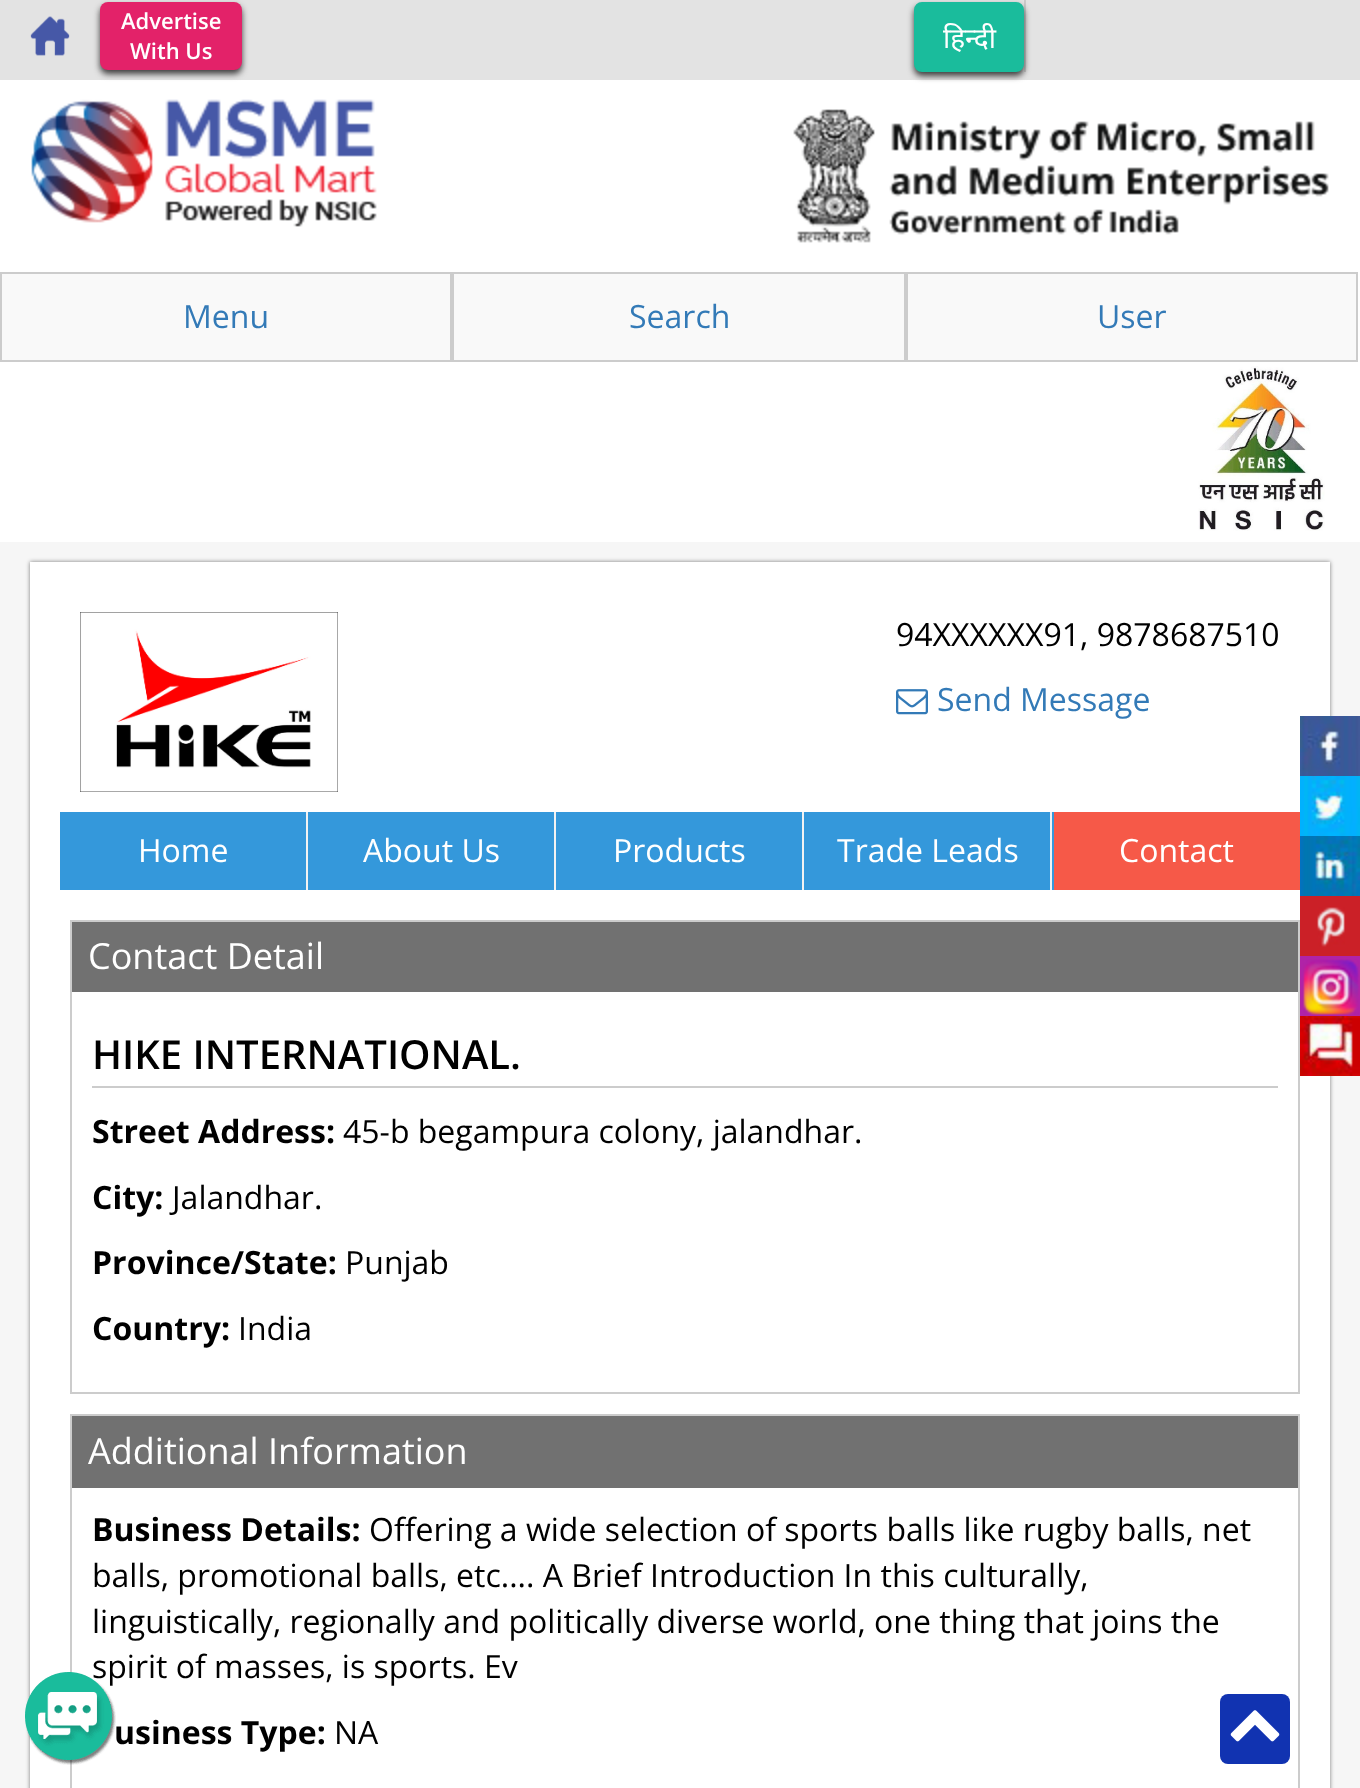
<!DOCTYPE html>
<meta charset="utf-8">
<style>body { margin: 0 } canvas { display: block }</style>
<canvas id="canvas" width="1360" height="1788"></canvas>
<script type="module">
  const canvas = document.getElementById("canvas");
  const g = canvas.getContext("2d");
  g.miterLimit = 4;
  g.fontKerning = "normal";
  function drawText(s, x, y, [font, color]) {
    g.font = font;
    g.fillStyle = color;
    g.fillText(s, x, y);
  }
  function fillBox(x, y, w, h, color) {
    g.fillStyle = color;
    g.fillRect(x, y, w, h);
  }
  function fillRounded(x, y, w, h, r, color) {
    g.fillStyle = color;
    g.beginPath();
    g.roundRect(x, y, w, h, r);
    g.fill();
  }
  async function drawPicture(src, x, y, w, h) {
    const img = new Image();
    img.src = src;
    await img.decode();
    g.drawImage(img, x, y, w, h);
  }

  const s1 = ["600 22px Open Sans", "#FFFFFF"];
  const s2 = ["28px Noto Sans", "#FFFFFF"];
  const s3 = ["32px Open Sans", "#337AB7"];
  const s4 = ["32px Open Sans", "#000000"];
  const s5 = ["32px Open Sans", "#FFFFFF"];
  const s6 = ["36px Open Sans", "#FFFFFF"];
  const s7 = ["600 40px Open Sans", "#000000"];
  const s8 = ["bold 32px Open Sans", "#000000"];

  fillBox(0, 0, 1360, 1788, "#F6F6F6");
  fillBox(0, 0, 1360, 80, "#E3E3E3");
  await drawPicture("pic1.png", 30, 16, 40, 40);
  fillBox(0, 80, 1360, 462, "#FFFFFF");
  g.fillStyle = "#3E3D3D";
  g.filter = "blur(3px)";
  g.beginPath();
  g.roundRect(100, 6, 142, 68, 8);
  g.fill();
  g.filter = "none";
  fillRounded(100, 2, 142, 68, 8, "#E32269");
  drawText("Advertise", 121, 29, s1);
  drawText("With Us", 130, 59, s1);
  fillBox(1024, 0, 2, 72, "#CACACA");
  g.fillStyle = "#3E3D3D";
  g.filter = "blur(3px)";
  g.beginPath();
  g.roundRect(914, 6, 110, 70, 8);
  g.fill();
  g.filter = "none";
  g.fillStyle = "#1ABC9C";
  g.beginPath();
  g.roundRect(915, 3, 108, 68, 7);
  g.fill();
  g.strokeStyle = "#1ABC9C";
  g.lineWidth = 2;
  g.stroke();
  drawText("हिन्दी", 943, 48, s2);
  await drawPicture("pic2.png", 31, 99, 346, 128);
  await drawPicture("pic3.png", 793, 109, 536, 134);
  g.fillStyle = "#F9F9F9";
  g.beginPath();
  g.rect(1, 273, 450, 88);
  g.fill();
  g.strokeStyle = "#CCCCCC";
  g.stroke();
  drawText("Menu", 183, 328, s3);
  g.fillStyle = "#F9F9F9";
  g.beginPath();
  g.rect(453, 273, 452, 88);
  g.fill();
  g.stroke();
  drawText("Search", 629, 328, s3);
  g.fillStyle = "#F9F9F9";
  g.beginPath();
  g.rect(907, 273, 450, 88);
  g.fill();
  g.stroke();
  drawText("User", 1097, 328, s3);
  await drawPicture("pic4.png", 1198, 366, 127, 165);
  g.fillStyle = "rgba(0, 0, 0, 0.5)";
  g.filter = "blur(2px)";
  g.beginPath();
  g.rect(30, 562, 1300, 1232);
  g.fill();
  g.filter = "none";
  fillBox(30, 562, 1300, 1226, "#FFFFFF");
  await drawPicture("pic5.png", 80, 612, 258, 180);
  drawText("94XXXXXX91, 9878687510", 896, 646, s4);
  await drawPicture("pic6.png", 896, 689, 32, 26);
  drawText("Send Message", 937, 711, s3);
  fillBox(60, 812, 994, 78, "#3498DB");
  fillBox(306, 812, 2, 78, "#F2F2F2");
  drawText("Home", 138, 862, s5);
  fillBox(554, 812, 2, 78, "#F2F2F2");
  drawText("About Us", 363, 862, s5);
  fillBox(802, 812, 2, 78, "#F2F2F2");
  drawText("Products", 613, 862, s5);
  fillBox(1050, 812, 2, 78, "#F2F2F2");
  drawText("Trade Leads", 837, 862, s5);
  fillBox(1054, 812, 246, 78, "#F65948");
  drawText("Contact", 1119, 862, s5);
  g.strokeRect(71, 921, 1228, 472);
  fillBox(72, 922, 1226, 70, "#717171");
  drawText("Contact Detail", 88, 969, s6);
  fillBox(92, 1086, 1186, 2, "#CCCCCC");
  drawText("HIKE INTERNATIONAL.", 92, 1069, s7);
  drawText("Street Address:", 92, 1143, s8);
  drawText("45-b begampura colony, jalandhar.", 343, 1143, s4);
  drawText("City:", 92, 1209, s8);
  drawText("Jalandhar.", 172, 1209, s4);
  drawText("Province/State:", 92, 1274, s8);
  drawText("Punjab", 345, 1274, s4);
  drawText("Country:", 92, 1340, s8);
  drawText("India", 238, 1340, s4);
  g.strokeRect(71, 1415, 1228, 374);
  fillBox(72, 1416, 1226, 72, "#717171");
  drawText("Additional Information", 88, 1464, s6);
  drawText("Business Details:", 92, 1541, s8);
  drawText("Offering a wide selection of sports balls like rugby balls, net", 369, 1541, s4);
  drawText("balls, promotional balls, etc.... A Brief Introduction In this culturally,", 92, 1587, s4);
  drawText("linguistically, regionally and politically diverse world, one thing that joins the", 92, 1633, s4);
  drawText("spirit of masses, is sports. Ev", 92, 1678, s4);
  drawText("usiness Type:", 114, 1744, s8);
  drawText("NA", 334, 1744, s4);
  await drawPicture("pic7.png", 1300, 716, 60, 60);
  fillBox(1300, 776, 4, 60, "#01B1FD");
  await drawPicture("pic8.png", 1304, 776, 56, 60);
  await drawPicture("pic9.png", 1300, 836, 60, 60);
  fillBox(1300, 896, 60, 60, "#CB2027");
  await drawPicture("pic10.png", 1317, 907, 28, 40);
  fillBox(1300, 956, 60, 60, "#B023A7");
  await drawPicture("pic11.png", 1303, 959, 56, 56);
  await drawPicture("pic12.png", 1300, 1016, 60, 60);
  await drawPicture("pic13.png", 25, 1672, 91, 93);
  fillRounded(1220, 1694, 70, 70, 8, "#1133B1");
  await drawPicture("pic14.png", 1230, 1710, 50, 32);
</script>
